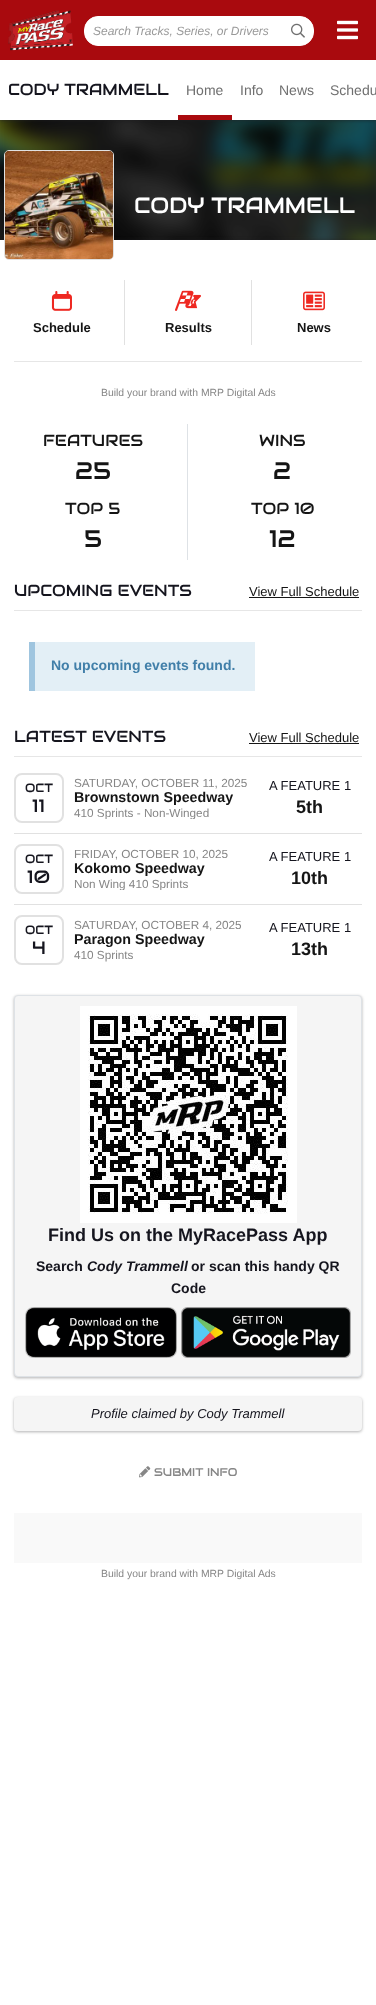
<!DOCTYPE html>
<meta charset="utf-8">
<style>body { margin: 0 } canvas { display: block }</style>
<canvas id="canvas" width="376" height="2005"></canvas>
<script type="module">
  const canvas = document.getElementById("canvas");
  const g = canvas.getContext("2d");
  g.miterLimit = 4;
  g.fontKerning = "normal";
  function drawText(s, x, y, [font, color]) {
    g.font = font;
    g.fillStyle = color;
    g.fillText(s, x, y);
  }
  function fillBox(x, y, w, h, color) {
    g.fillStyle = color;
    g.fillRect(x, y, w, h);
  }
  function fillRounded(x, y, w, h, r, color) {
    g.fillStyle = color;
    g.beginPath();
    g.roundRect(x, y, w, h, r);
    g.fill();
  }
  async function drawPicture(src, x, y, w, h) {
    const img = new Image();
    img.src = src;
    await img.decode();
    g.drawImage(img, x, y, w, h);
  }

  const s1 = ["italic 12px Liberation Sans", "#999999"];
  const s2 = ["16px Audiowide", "#15151E"];
  const s3 = ["14px Liberation Sans", "#6F6F6F"];
  const s4 = ["22px Audiowide", "#FFFFFF"];
  const s5 = ["bold 13px Liberation Sans", "#151515"];
  const s6 = ["10.4px Liberation Sans", "#868686"];
  const s7 = ["16px Audiowide", "#151515"];
  const s8 = ["24px Audiowide", "#151515"];
  const s9 = ["13px Liberation Sans", "#151515"];
  const s10 = ["bold 14px Liberation Sans", "#417FA9"];
  const s11 = ["12px Audiowide", "#15151E"];
  const s12 = ["18px Audiowide", "#15151E"];
  const s13 = ["11.75px Liberation Sans", "#868686"];
  const s14 = ["bold 14.25px Liberation Sans", "#151515"];
  const s15 = ["13px Liberation Sans", "#15151E"];
  const s16 = ["bold 18px Liberation Sans", "#151515"];
  const s17 = ["bold 18px Liberation Sans", "#15151E"];
  const s18 = ["bold 14px Liberation Sans", "#15151E"];
  const s19 = ["italic bold 14px Liberation Sans", "#15151E"];
  const s20 = ["italic 13px Liberation Sans", "#15151E"];
  const s21 = ["11.25px Audiowide", "#868686"];

  fillBox(0, 0, 376, 2005, "#FFFFFF");
  await drawPicture("pic4.png", 0, 120, 376, 120);
  g.save();
  g.beginPath();
  g.rect(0, 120, 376, 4);
  g.clip();
  g.fillStyle = "rgba(31, 31, 33, 0.5)";
  g.filter = "blur(1.5px)";
  g.beginPath();
  g.rect(0, 61, 376, 60);
  g.fill();
  g.filter = "none";
  g.restore();
  fillBox(0, 0, 376, 60, "#A90A0E");
  await drawPicture("pic1.png", 8, 10, 65, 41);
  g.fillStyle = "#FFFFFF";
  g.beginPath();
  g.roundRect(84.5, 16.5, 229, 29, 13.5);
  g.fill();
  g.strokeStyle = "#FFFFFF";
  g.stroke();
  drawText("Search Tracks, Series, or Drivers", 93, 35, s1);
  await drawPicture("pic2.png", 291, 23, 14, 15);
  await drawPicture("pic3.png", 337, 20, 21, 20);
  drawText("CODY TRAMMELL", 8, 95, s2);
  drawText("Home", 186, 95, s3);
  fillBox(178, 115, 54, 5, "#A90A0E");
  drawText("Info", 240, 95, s3);
  drawText("News", 279, 95, s3);
  drawText("Schedu", 330, 95, s3);
  g.fillStyle = "rgba(31, 31, 33, 0.35)";
  g.filter = "blur(1.5px)";
  g.beginPath();
  g.rect(0, 239, 376, 1765);
  g.fill();
  g.filter = "none";
  fillBox(0, 240, 376, 1765, "#FFFFFF");
  g.beginPath();
  g.roundRect(4.5, 150.5, 109, 109, 4.5);
  g.strokeStyle = "#E1E1E1";
  g.stroke();
  await drawPicture("pic5.png", 5, 151, 108, 108);
  drawText("CODY TRAMMELL", 134, 213, s4);
  fillBox(124, 280, 1, 65, "#E1E1E1");
  await drawPicture("pic6.png", 51, 291, 21, 20);
  drawText("Schedule", 33, 332, s5);
  fillBox(251, 280, 1, 65, "#E1E1E1");
  await drawPicture("pic7.png", 175, 290, 26, 21);
  drawText("Results", 165, 332, s5);
  await drawPicture("pic8.png", 303, 291, 22, 20);
  drawText("News", 297, 332, s5);
  fillBox(14, 361, 348, 1, "#E6E6E6");
  drawText("Build your brand with MRP Digital Ads", 101, 396, s6);
  fillBox(187, 424, 1, 136, "#DEE2E6");
  drawText("FEATURES", 43, 446, s7);
  drawText("25", 75, 479, s8);
  drawText("WINS", 259, 446, s7);
  drawText("2", 273, 479, s8);
  drawText("TOP 5", 65, 514, s7);
  drawText("5", 84, 547, s8);
  drawText("TOP 10", 251, 514, s7);
  drawText("12", 269, 547, s8);
  drawText("UPCOMING EVENTS", 14, 596, s2);
  drawText("View Full Schedule", 249, 596, s9);
  fillBox(249, 597, 110, 1, "#151515");
  fillBox(14, 610, 348, 1, "#E6E6E6");
  fillBox(35, 642, 220, 49, "#E3EFF6");
  fillBox(29, 642, 6, 49, "#9FC5DF");
  drawText("No upcoming events found.", 51, 670, s10);
  drawText("LATEST EVENTS", 14, 742, s2);
  drawText("View Full Schedule", 249, 742, s9);
  fillBox(249, 743, 110, 1, "#151515");
  fillBox(14, 756, 348, 1, "#E6E6E6");
  fillBox(14, 833, 348, 1, "#E1E1E1");
  g.beginPath();
  g.roundRect(15, 774, 48, 48, 7);
  g.lineWidth = 2;
  g.stroke();
  drawText("OCT", 25, 792, s11);
  drawText("11", 32, 812, s12);
  drawText("SATURDAY, OCTOBER 11, 2025", 74, 787, s13);
  drawText("Brownstown Speedway", 74, 802, s14);
  g.save();
  g.beginPath();
  g.rect(74, 807, 173, 12);
  g.clip();
  drawText("410 Sprints - Non-Winged", 74, 817, s13);
  g.restore();
  drawText("A FEATURE 1", 269, 790, s15);
  drawText("5th", 296, 813, s16);
  fillBox(14, 904, 348, 1, "#E1E1E1");
  g.beginPath();
  g.roundRect(15, 845, 48, 48, 7);
  g.stroke();
  drawText("OCT", 25, 863, s11);
  drawText("10", 27, 883, s12);
  drawText("FRIDAY, OCTOBER 10, 2025", 74, 858, s13);
  drawText("Kokomo Speedway", 74, 873, s14);
  g.save();
  g.beginPath();
  g.rect(74, 878, 173, 12);
  g.clip();
  drawText("Non Wing 410 Sprints", 74, 888, s13);
  g.restore();
  drawText("A FEATURE 1", 269, 861, s15);
  drawText("10th", 291, 884, s16);
  g.beginPath();
  g.roundRect(15, 916, 48, 48, 7);
  g.stroke();
  drawText("OCT", 25, 934, s11);
  drawText("4", 32, 954, s12);
  drawText("SATURDAY, OCTOBER 4, 2025", 74, 929, s13);
  drawText("Paragon Speedway", 74, 944, s14);
  drawText("410 Sprints", 74, 959, s13);
  drawText("A FEATURE 1", 269, 932, s15);
  drawText("13th", 291, 955, s16);
  g.fillStyle = "rgba(31, 31, 33, 0.35)";
  g.filter = "blur(1.5px)";
  g.beginPath();
  g.roundRect(14, 996, 348, 382, 4);
  g.fill();
  g.filter = "none";
  g.fillStyle = "#F5F5F5";
  g.beginPath();
  g.roundRect(14.5, 995.5, 347, 381, 3.5);
  g.fill();
  g.strokeStyle = "#DEE2E6";
  g.lineWidth = 1;
  g.stroke();
  await drawPicture("pic9.png", 80, 1006, 217, 217);
  drawText("Find Us on the MyRacePass App", 48, 1241, s17);
  drawText("Search", 36, 1271, s18);
  drawText("Cody Trammell", 87, 1271, s19);
  drawText("or scan this handy QR", 191, 1271, s18);
  drawText("Code", 171, 1293, s18);
  await drawPicture("pic10.png", 25, 1307, 152, 51);
  await drawPicture("pic11.png", 181, 1307, 170, 51);
  g.fillStyle = "rgba(31, 31, 33, 0.35)";
  g.filter = "blur(1.5px)";
  g.beginPath();
  g.roundRect(14, 1398, 348, 34, 4);
  g.fill();
  g.filter = "none";
  fillRounded(14, 1397, 348, 34, 4, "#F5F5F5");
  drawText("Profile claimed by Cody Trammell", 91, 1418, s20);
  await drawPicture("pic12.png", 139, 1466, 12, 12);
  drawText("SUBMIT INFO", 154, 1476, s21);
  fillBox(14, 1513, 348, 50, "#F9F9F9");
  drawText("Build your brand with MRP Digital Ads", 101, 1577, s6);
</script>
